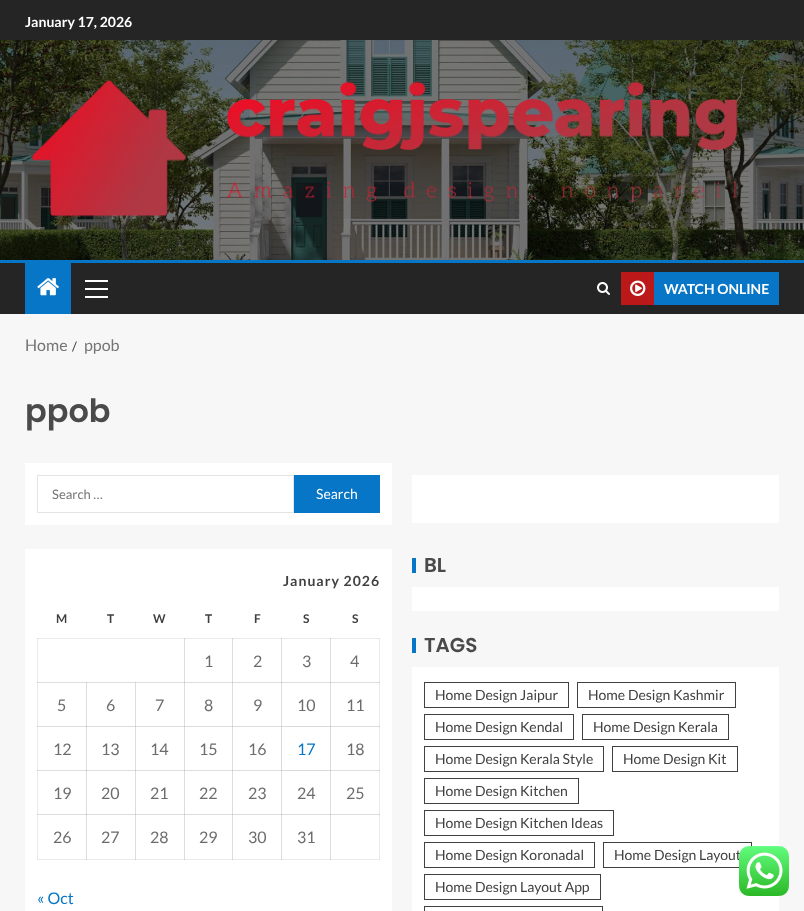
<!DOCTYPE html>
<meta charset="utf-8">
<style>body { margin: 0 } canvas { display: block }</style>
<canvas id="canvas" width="804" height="911"></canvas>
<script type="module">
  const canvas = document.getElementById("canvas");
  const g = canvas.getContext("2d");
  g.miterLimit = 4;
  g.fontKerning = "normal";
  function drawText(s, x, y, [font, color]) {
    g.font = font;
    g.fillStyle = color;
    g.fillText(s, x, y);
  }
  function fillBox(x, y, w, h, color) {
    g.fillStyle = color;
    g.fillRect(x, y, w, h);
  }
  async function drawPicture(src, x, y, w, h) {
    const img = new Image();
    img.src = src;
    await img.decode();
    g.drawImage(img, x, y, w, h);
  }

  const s1 = ["bold 14px Lato", "#FFFFFF"];
  const s2 = ["16px Lato", "#757575"];
  const s3 = ["13px Lato", "#393E46"];
  const s4 = ["600 32px Poppins", "#4A4A4A"];
  const s5 = ["13px Lato", "#757575"];
  const s6 = ["14px Lato", "#FFFFFF"];
  const s7 = ["600 20px Poppins", "#4A4A4A"];
  const s8 = ["bold 14px Lato", "#404040"];
  const s9 = ["bold 12px Lato", "#404040"];
  const s10 = ["16px Lato", "#6C6C6C"];
  const s11 = ["16px Lato", "#0776C6"];
  const s12 = ["14px Lato", "#404040"];

  fillBox(0, 0, 804, 911, "#F7F7F7");
  fillBox(0, 0, 804, 40, "#252525");
  drawText("January 17, 2026", 25, 27, s1);
  await drawPicture("pic1.png", 0, 40, 804, 220);
  await drawPicture("pic2.png", 31, 80, 707, 138);
  fillBox(0, 263, 804, 51, "#252525");
  fillBox(0, 260, 804, 3, "#0776C6");
  fillBox(25, 263, 46, 51, "#0776C6");
  await drawPicture("pic3.png", 37, 278, 22, 18);
  fillBox(85, 288, 23, 2, "#FFFFFF");
  fillBox(85, 280, 23, 2, "#FFFFFF");
  fillBox(85, 296, 23, 2, "#FFFFFF");
  await drawPicture("pic4.png", 597, 282, 13, 13);
  fillBox(621, 272, 33, 33, "#BB1919");
  await drawPicture("pic5.png", 630, 280, 16, 16);
  fillBox(654, 272, 125, 33, "#0776C6");
  drawText("WATCH ONLINE", 664, 294, s1);
  drawText("Home", 25, 351, s2);
  drawText("/", 72, 351, s3);
  drawText("ppob", 84, 351, s2);
  drawText("ppob", 25, 422, s4);
  fillBox(25, 463, 367, 62, "#FFFFFF");
  g.strokeStyle = "#E4E4E4";
  g.strokeRect(37.5, 475.5, 256, 37);
  drawText("Search …", 52, 499, s5);
  fillBox(294, 475, 86, 38, "#0776C6");
  drawText("Search", 316, 499, s6);
  fillBox(412, 475, 367, 48, "#FFFFFF");
  fillBox(412, 558, 4, 15, "#0776C6");
  drawText("BL", 424, 572, s7);
  fillBox(412, 587, 367, 24, "#FFFFFF");
  fillBox(25, 549, 367, 362, "#FFFFFF");
  fillBox(37, 638, 1, 222, "#EAEAEA");
  fillBox(37, 638, 148, 1, "#EAEAEA");
  fillBox(37, 638, 1, 1, "#DDDDDD");
  fillBox(184, 638, 1, 45, "#DDDDDD");
  fillBox(184, 638, 49, 1, "#EAEAEA");
  fillBox(184, 638, 1, 1, "#D0D0D0");
  fillBox(232, 638, 1, 45, "#DDDDDD");
  fillBox(232, 638, 50, 1, "#EAEAEA");
  fillBox(232, 638, 1, 1, "#D0D0D0");
  fillBox(281, 638, 1, 45, "#DDDDDD");
  fillBox(281, 638, 50, 1, "#EAEAEA");
  fillBox(281, 638, 1, 1, "#D0D0D0");
  fillBox(330, 638, 1, 45, "#DDDDDD");
  fillBox(379, 638, 1, 177, "#EAEAEA");
  fillBox(37, 682, 50, 1, "#DDDDDD");
  fillBox(37, 682, 1, 1, "#D0D0D0");
  fillBox(86, 682, 1, 45, "#DDDDDD");
  fillBox(86, 682, 50, 1, "#DDDDDD");
  fillBox(86, 682, 1, 1, "#CDCDCD");
  fillBox(135, 682, 1, 45, "#DDDDDD");
  fillBox(135, 682, 50, 1, "#DDDDDD");
  fillBox(135, 682, 1, 1, "#CDCDCD");
  fillBox(184, 682, 1, 45, "#DDDDDD");
  fillBox(184, 682, 49, 1, "#DDDDDD");
  fillBox(184, 682, 1, 1, "#C9C9C9");
  fillBox(232, 682, 1, 45, "#DDDDDD");
  fillBox(232, 682, 50, 1, "#DDDDDD");
  fillBox(232, 682, 1, 1, "#C9C9C9");
  fillBox(281, 682, 1, 45, "#DDDDDD");
  fillBox(281, 682, 50, 1, "#DDDDDD");
  fillBox(281, 682, 1, 1, "#C9C9C9");
  fillBox(330, 682, 1, 45, "#DDDDDD");
  fillBox(37, 726, 50, 1, "#DDDDDD");
  fillBox(37, 726, 1, 1, "#D0D0D0");
  fillBox(86, 726, 1, 45, "#DDDDDD");
  fillBox(86, 726, 50, 1, "#DDDDDD");
  fillBox(86, 726, 1, 1, "#C9C9C9");
  fillBox(135, 726, 1, 45, "#DDDDDD");
  fillBox(135, 726, 50, 1, "#DDDDDD");
  fillBox(135, 726, 1, 1, "#C9C9C9");
  fillBox(184, 726, 1, 45, "#DDDDDD");
  fillBox(184, 726, 49, 1, "#DDDDDD");
  fillBox(184, 726, 1, 1, "#C9C9C9");
  fillBox(232, 726, 1, 45, "#DDDDDD");
  fillBox(232, 726, 50, 1, "#DDDDDD");
  fillBox(232, 726, 1, 1, "#C9C9C9");
  fillBox(281, 726, 1, 45, "#D9D9D9");
  fillBox(281, 726, 50, 1, "#D9D9D9");
  fillBox(281, 726, 1, 1, "#C9C9C9");
  fillBox(330, 726, 1, 45, "#D9D9D9");
  fillBox(37, 770, 50, 1, "#DDDDDD");
  fillBox(37, 770, 1, 1, "#D0D0D0");
  fillBox(86, 770, 1, 45, "#DDDDDD");
  fillBox(86, 770, 50, 1, "#DDDDDD");
  fillBox(86, 770, 1, 1, "#C9C9C9");
  fillBox(135, 770, 1, 45, "#DDDDDD");
  fillBox(135, 770, 50, 1, "#DDDDDD");
  fillBox(135, 770, 1, 1, "#C9C9C9");
  fillBox(184, 770, 1, 45, "#DDDDDD");
  fillBox(184, 770, 49, 1, "#DDDDDD");
  fillBox(184, 770, 1, 1, "#C9C9C9");
  fillBox(232, 770, 1, 45, "#DDDDDD");
  fillBox(232, 770, 50, 1, "#DDDDDD");
  fillBox(232, 770, 1, 1, "#C9C9C9");
  fillBox(281, 770, 1, 45, "#DDDDDD");
  fillBox(281, 770, 50, 1, "#D9D9D9");
  fillBox(281, 770, 1, 1, "#C9C9C9");
  fillBox(330, 770, 1, 45, "#DDDDDD");
  fillBox(37, 859, 50, 1, "#EAEAEA");
  fillBox(37, 859, 1, 1, "#E0E0E0");
  fillBox(37, 814, 50, 1, "#DDDDDD");
  fillBox(37, 814, 1, 1, "#D1D1D1");
  fillBox(86, 814, 1, 46, "#DDDDDD");
  fillBox(86, 859, 50, 1, "#EAEAEA");
  fillBox(86, 859, 1, 1, "#D1D1D1");
  fillBox(86, 814, 50, 1, "#DDDDDD");
  fillBox(86, 814, 1, 1, "#C9C9C9");
  fillBox(135, 814, 1, 46, "#DDDDDD");
  fillBox(135, 859, 50, 1, "#EAEAEA");
  fillBox(135, 859, 1, 1, "#D1D1D1");
  fillBox(135, 814, 50, 1, "#DDDDDD");
  fillBox(135, 814, 1, 1, "#C9C9C9");
  fillBox(184, 814, 1, 46, "#DDDDDD");
  fillBox(184, 859, 49, 1, "#EAEAEA");
  fillBox(184, 859, 1, 1, "#D1D1D1");
  fillBox(184, 814, 49, 1, "#DDDDDD");
  fillBox(184, 814, 1, 1, "#C9C9C9");
  fillBox(232, 814, 1, 46, "#DDDDDD");
  fillBox(232, 859, 50, 1, "#EAEAEA");
  fillBox(232, 859, 1, 1, "#D1D1D1");
  fillBox(232, 814, 50, 1, "#DDDDDD");
  fillBox(232, 814, 1, 1, "#C9C9C9");
  fillBox(281, 814, 1, 46, "#DDDDDD");
  fillBox(281, 859, 50, 1, "#EAEAEA");
  fillBox(281, 859, 1, 1, "#D1D1D1");
  fillBox(281, 814, 50, 1, "#DDDDDD");
  fillBox(281, 814, 1, 1, "#C9C9C9");
  fillBox(330, 814, 1, 46, "#DDDDDD");
  fillBox(330, 859, 50, 1, "#EAEAEA");
  fillBox(330, 859, 1, 1, "#D1D1D1");
  fillBox(379, 814, 1, 46, "#EAEAEA");
  fillBox(379, 859, 1, 1, "#E0E0E0");
  g.letterSpacing = "1px";
  drawText("January 2026", 283, 586, s8);
  g.letterSpacing = "0px";
  drawText("M", 56, 623, s9);
  drawText("T", 107, 623, s9);
  drawText("W", 153, 623, s9);
  drawText("T", 205, 623, s9);
  drawText("F", 254, 623, s9);
  drawText("S", 303, 623, s9);
  drawText("S", 352, 623, s9);
  drawText("1", 204, 667, s10);
  drawText("2", 253, 667, s10);
  drawText("3", 302, 667, s10);
  fillBox(330, 638, 50, 1, "#EAEAEA");
  fillBox(330, 638, 1, 1, "#D0D0D0");
  fillBox(379, 638, 1, 1, "#DDDDDD");
  drawText("4", 350, 667, s10);
  drawText("5", 57, 711, s10);
  drawText("6", 106, 711, s10);
  drawText("7", 155, 711, s10);
  drawText("8", 204, 711, s10);
  drawText("9", 253, 711, s10);
  drawText("10", 297, 711, s10);
  fillBox(330, 682, 50, 1, "#DDDDDD");
  fillBox(330, 682, 1, 1, "#C9C9C9");
  fillBox(379, 682, 1, 1, "#D0D0D0");
  drawText("11", 346, 711, s10);
  drawText("12", 53, 755, s10);
  drawText("13", 101, 755, s10);
  drawText("14", 150, 755, s10);
  drawText("15", 199, 755, s10);
  drawText("16", 248, 755, s10);
  drawText("17", 297, 755, s11);
  fillBox(330, 726, 50, 1, "#DDDDDD");
  fillBox(330, 726, 1, 1, "#C9C9C9");
  fillBox(379, 726, 1, 1, "#D0D0D0");
  drawText("18", 346, 755, s10);
  drawText("19", 53, 799, s10);
  drawText("20", 101, 799, s10);
  drawText("21", 150, 799, s10);
  drawText("22", 199, 799, s10);
  drawText("23", 248, 799, s10);
  drawText("24", 297, 799, s10);
  fillBox(330, 770, 50, 1, "#DDDDDD");
  fillBox(330, 770, 1, 1, "#C9C9C9");
  fillBox(379, 770, 1, 1, "#D0D0D0");
  drawText("25", 346, 799, s10);
  fillBox(330, 814, 50, 1, "#DDDDDD");
  fillBox(330, 814, 1, 1, "#C9C9C9");
  fillBox(379, 814, 1, 1, "#D1D1D1");
  drawText("26", 53, 843, s10);
  drawText("27", 101, 843, s10);
  drawText("28", 150, 843, s10);
  drawText("29", 199, 843, s10);
  drawText("30", 248, 843, s10);
  drawText("31", 297, 843, s10);
  drawText("« Oct", 37, 904, s11);
  fillBox(412, 638, 4, 15, "#0776C6");
  drawText("TAGS", 424, 652, s7);
  fillBox(412, 667, 367, 244, "#FFFFFF");
  g.strokeStyle = "#404040";
  g.strokeRect(424.5, 682.5, 144, 25);
  drawText("Home Design Jaipur", 435, 700, s12);
  g.strokeRect(577.5, 682.5, 158, 25);
  drawText("Home Design Kashmir", 588, 700, s12);
  g.strokeRect(424.5, 714.5, 149, 25);
  drawText("Home Design Kendal", 435, 732, s12);
  g.strokeRect(582.5, 714.5, 146, 25);
  drawText("Home Design Kerala", 593, 732, s12);
  g.strokeRect(424.5, 746.5, 179, 25);
  drawText("Home Design Kerala Style", 435, 764, s12);
  g.strokeRect(612.5, 746.5, 125, 25);
  drawText("Home Design Kit", 623, 764, s12);
  g.strokeRect(424.5, 778.5, 154, 25);
  drawText("Home Design Kitchen", 435, 796, s12);
  g.strokeRect(424.5, 810.5, 189, 25);
  drawText("Home Design Kitchen Ideas", 435, 828, s12);
  g.strokeRect(424.5, 842.5, 170, 25);
  drawText("Home Design Koronadal", 435, 860, s12);
  g.strokeRect(603.5, 842.5, 148, 25);
  drawText("Home Design Layout", 614, 860, s12);
  g.strokeRect(424.5, 874.5, 176, 25);
  drawText("Home Design Layout App", 435, 892, s12);
  g.strokeRect(424.5, 906.5, 178, 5);
  await drawPicture("pic6.png", 739, 846, 50, 50);
</script>
